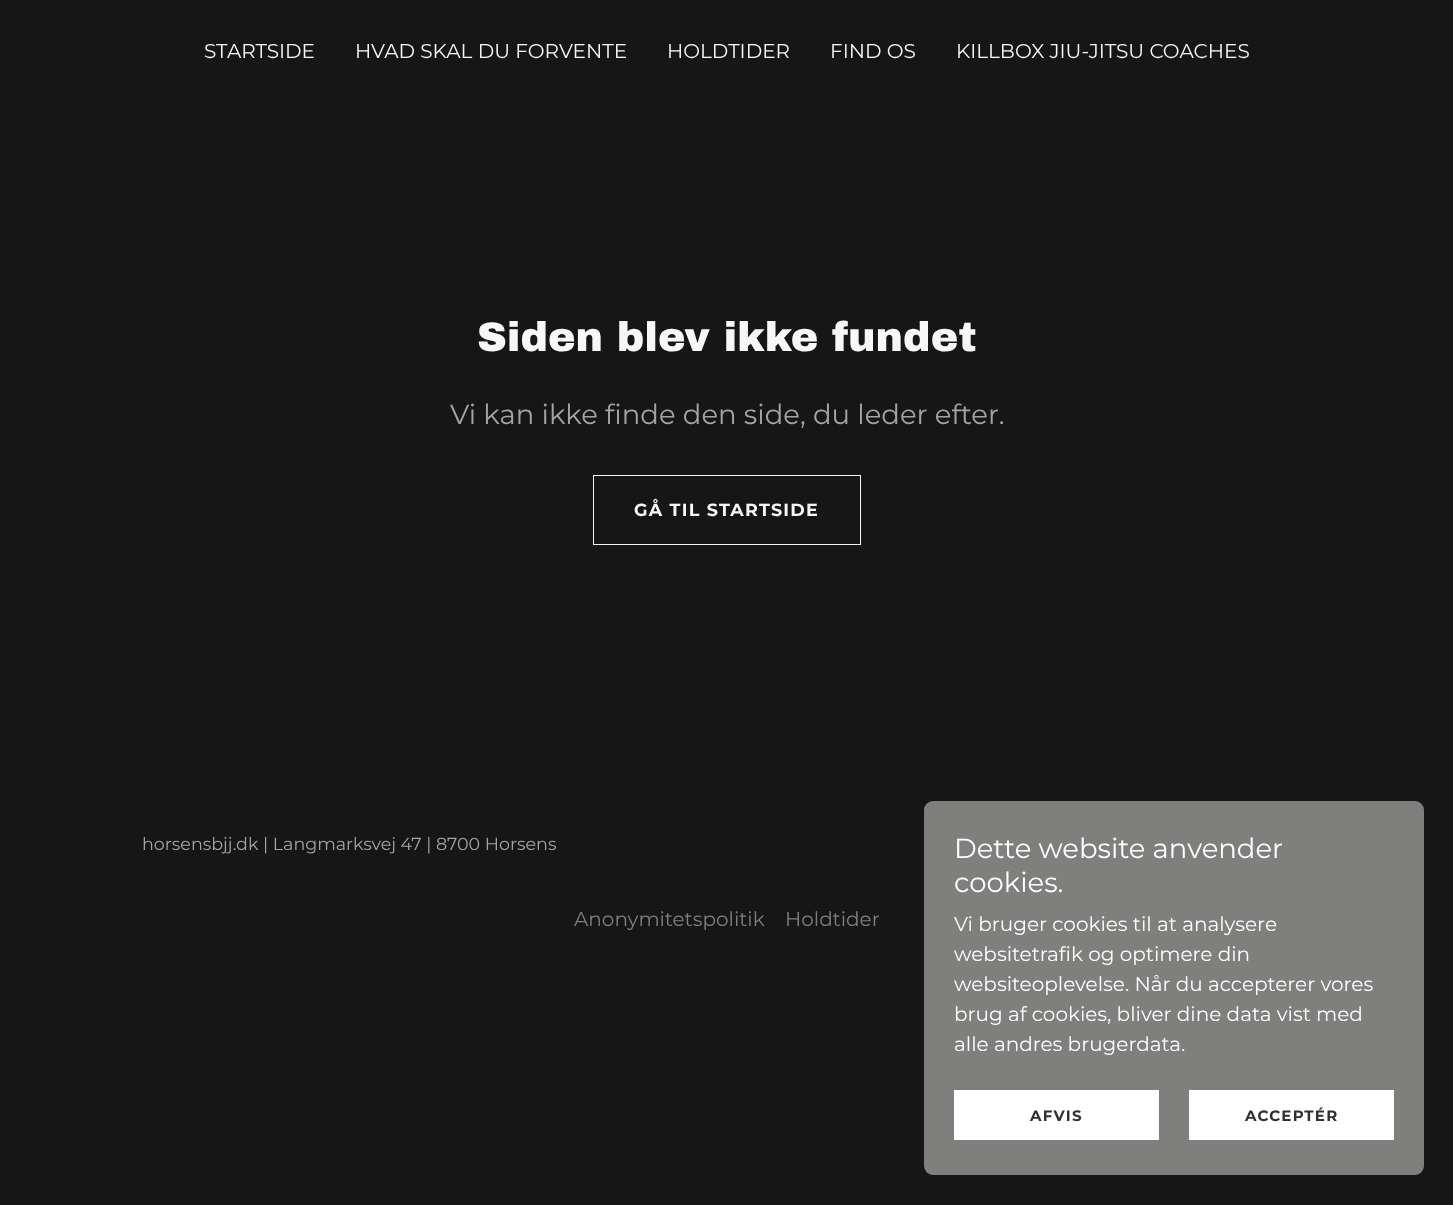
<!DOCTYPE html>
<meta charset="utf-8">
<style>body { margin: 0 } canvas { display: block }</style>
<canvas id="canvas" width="1453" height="1205"></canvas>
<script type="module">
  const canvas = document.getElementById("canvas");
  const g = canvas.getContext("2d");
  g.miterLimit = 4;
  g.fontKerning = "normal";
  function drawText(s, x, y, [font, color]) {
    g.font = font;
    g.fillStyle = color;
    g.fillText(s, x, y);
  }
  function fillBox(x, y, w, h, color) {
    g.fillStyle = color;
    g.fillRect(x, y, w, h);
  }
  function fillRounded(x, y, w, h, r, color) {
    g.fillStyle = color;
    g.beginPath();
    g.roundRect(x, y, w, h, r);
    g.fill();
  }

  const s1 = ["20px Montserrat", "#F7F7F7"];
  const s2 = ["900 41.25px Archivo Black", "#F7F7F7"];
  const s3 = ["27.5px Montserrat", "#A4A4A4"];
  const s4 = ["bold 17.5px Montserrat", "#F7F7F7"];
  const s5 = ["17.5px Montserrat", "#A4A4A4"];
  const s6 = ["20px Montserrat", "#7F7F7E"];
  const s7 = ["27.5px Montserrat", "#FFFFFF"];
  const s8 = ["20px Montserrat", "#FFFFFF"];
  const s9 = ["bold 15px Montserrat", "#303030"];

  fillBox(0, 0, 1453, 1205, "#161616");
  drawText("STARTSIDE", 204, 58, s1);
  drawText("HVAD SKAL DU FORVENTE", 355, 58, s1);
  drawText("HOLDTIDER", 667, 58, s1);
  drawText("FIND OS", 830, 58, s1);
  drawText("KILLBOX JIU-JITSU COACHES", 956, 58, s1);
  drawText("Siden blev ikke fundet", 477, 351, s2);
  drawText("Vi kan ikke finde den side, du leder efter.", 450, 424, s3);
  g.strokeStyle = "#F7F7F7";
  g.strokeRect(593.5, 475.5, 267, 69);
  g.letterSpacing = "1.25px";
  drawText("GÅ TIL STARTSIDE", 634, 516, s4);
  g.letterSpacing = "0px";
  drawText("horsensbjj.dk | Langmarksvej 47 | 8700 Horsens", 142, 850, s5);
  drawText("Anonymitetspolitik", 574, 926, s6);
  drawText("Holdtider", 785, 926, s6);
  fillRounded(924, 801, 500, 374, 9, "#7F7F7E");
  drawText("Dette website anvender", 954, 858, s7);
  drawText("cookies.", 954, 892, s7);
  drawText("Vi bruger cookies til at analysere", 954, 931, s8);
  drawText("websitetrafik og optimere din", 954, 961, s8);
  drawText("websiteoplevelse. Når du accepterer vores", 954, 991, s8);
  drawText("brug af cookies, bliver dine data vist med", 954, 1021, s8);
  drawText("alle andres brugerdata.", 954, 1051, s8);
  fillBox(954, 1090, 205, 50, "#FFFFFF");
  g.letterSpacing = "1.25px";
  drawText("AFVIS", 1030, 1121, s9);
  fillBox(1189, 1090, 205, 50, "#FFFFFF");
  drawText("ACCEPTÉR", 1245, 1121, s9);
</script>
